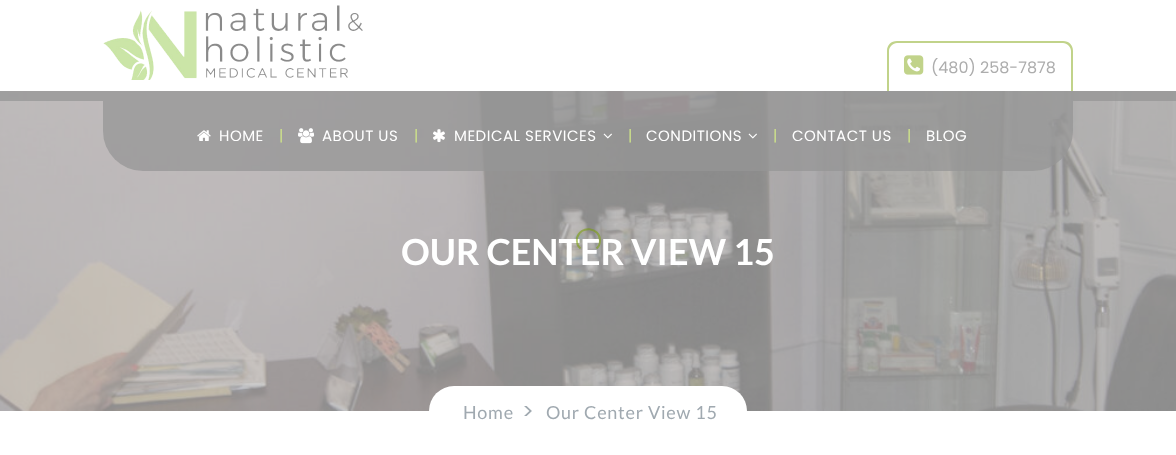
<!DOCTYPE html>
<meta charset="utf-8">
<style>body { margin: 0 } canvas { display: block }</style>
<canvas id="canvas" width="1176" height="455"></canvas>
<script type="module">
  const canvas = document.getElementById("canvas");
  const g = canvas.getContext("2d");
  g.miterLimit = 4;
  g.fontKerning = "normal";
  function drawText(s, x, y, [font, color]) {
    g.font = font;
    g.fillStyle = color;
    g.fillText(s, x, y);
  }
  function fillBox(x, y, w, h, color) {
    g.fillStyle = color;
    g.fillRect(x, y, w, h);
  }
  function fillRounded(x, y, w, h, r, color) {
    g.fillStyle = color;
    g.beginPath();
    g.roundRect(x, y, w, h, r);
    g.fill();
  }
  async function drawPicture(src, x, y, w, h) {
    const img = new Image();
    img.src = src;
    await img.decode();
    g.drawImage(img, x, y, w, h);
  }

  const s1 = ["16px Poppins", "#ADADAD"];
  const s2 = ["15px Poppins", "#FFFFFF"];
  const s3 = ["15px Poppins", "#CDE28A"];
  const s4 = ["bold 36px Lato", "#FFFFFF"];
  const s5 = ["18px Lato", "#A0A9B0"];
  const s6 = ["22px Poppins", "#A0A9B0"];

  fillBox(0, 0, 1176, 455, "#FFFFFF");
  await drawPicture("pic1.png", 103, 5, 260, 75);
  g.fillStyle = "#C1D38A";
  g.beginPath();
  g.moveTo(897, 41);
  g.lineTo(1063, 41);
  g.bezierCurveTo(1069, 41, 1073, 45, 1073, 51);
  g.lineTo(1073, 91);
  g.lineTo(887, 91);
  g.lineTo(887, 51);
  g.bezierCurveTo(887, 45, 891, 41, 897, 41);
  g.closePath();
  g.moveTo(897, 43);
  g.lineTo(1063, 43);
  g.bezierCurveTo(1067, 43, 1071, 47, 1071, 51);
  g.lineTo(1071, 91);
  g.lineTo(889, 91);
  g.lineTo(889, 51);
  g.bezierCurveTo(889, 47, 893, 43, 897, 43);
  g.closePath();
  g.fill("evenodd");
  await drawPicture("pic2.png", 904, 55, 20, 20);
  drawText("(480) 258-7878", 931, 73, s1);
  await drawPicture("pic8.png", 0, 91, 1176, 320);
  fillBox(0, 91, 1176, 10, "rgba(149, 149, 149, 0.75)");
  g.beginPath();
  g.roundRect(103, 101, 970, 70, [0, 0, 40, 40]);
  g.fill();
  await drawPicture("pic3.png", 197, 130, 14, 11);
  g.letterSpacing = "0.5px";
  drawText("HOME", 219, 141, s2);
  drawText("|", 279, 141, s3);
  await drawPicture("pic4.png", 298, 128, 17, 16);
  drawText("ABOUT US", 322, 141, s2);
  drawText("|", 414, 141, s3);
  await drawPicture("pic5.png", 433, 129, 12, 14);
  drawText("MEDICAL SERVICES", 454, 141, s2);
  await drawPicture("pic6.png", 603, 133, 9, 6);
  drawText("|", 628, 141, s3);
  drawText("CONDITIONS", 646, 141, s2);
  await drawPicture("pic7.png", 748, 133, 9, 6);
  drawText("|", 773, 141, s3);
  drawText("CONTACT US", 792, 141, s2);
  drawText("|", 907, 141, s3);
  drawText("BLOG", 926, 141, s2);
  g.letterSpacing = "0px";
  drawText("OUR CENTER VIEW 15", 401, 265, s4);
  g.beginPath();
  g.moveTo(580.5, 248.5);
  g.bezierCurveTo(577.5, 246, 576.5, 242, 577, 238);
  g.bezierCurveTo(580, 225, 600, 227, 600, 240.5);
  g.bezierCurveTo(600, 243.5, 599, 246.5, 596.5, 248.5);
  g.strokeStyle = "rgba(120, 159, 1, 0.54)";
  g.lineWidth = 2;
  g.stroke();
  fillRounded(429, 386, 318, 52, 25, "#FFFFFF");
  g.letterSpacing = "0.75px";
  drawText("Home", 463, 419, s5);
  g.letterSpacing = "0px";
  drawText(">", 522, 419, s6);
  g.letterSpacing = "0.75px";
  drawText("Our Center View 15", 546, 419, s5);
</script>
